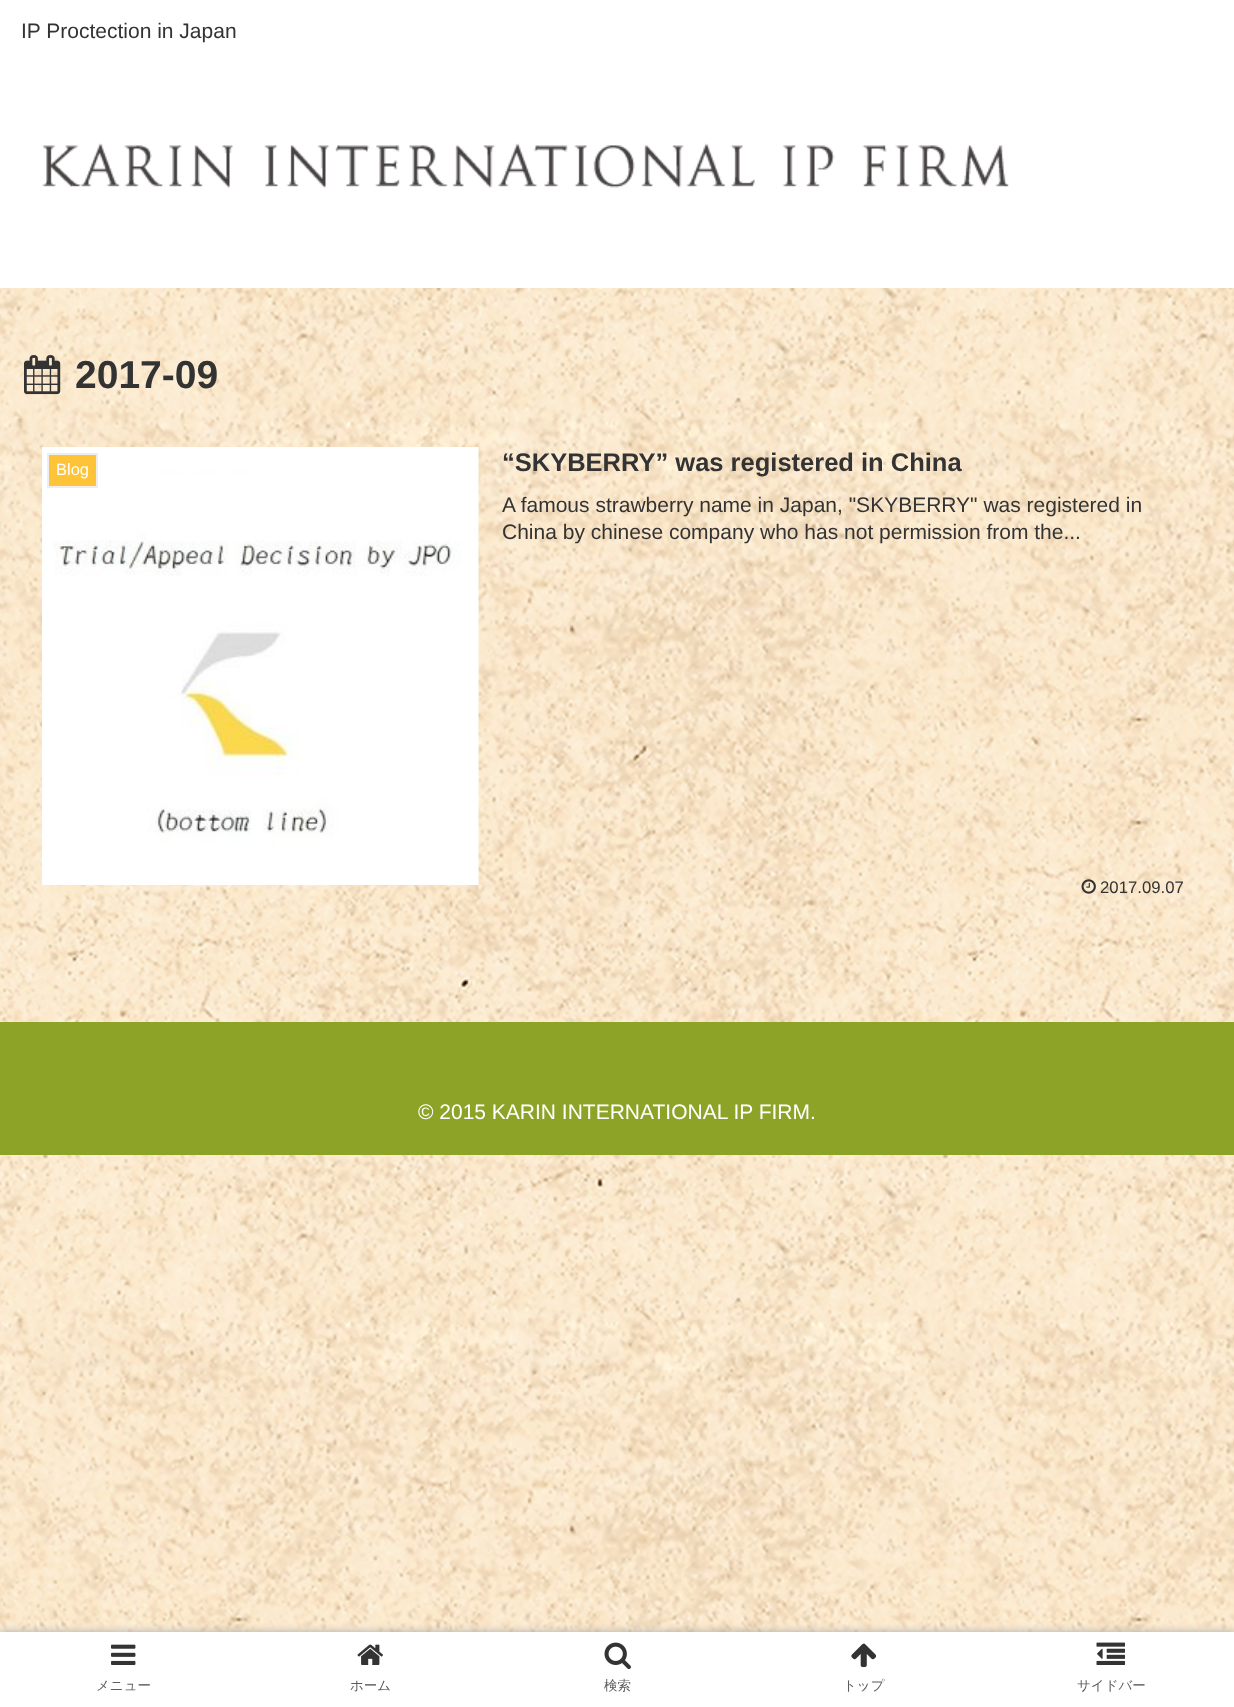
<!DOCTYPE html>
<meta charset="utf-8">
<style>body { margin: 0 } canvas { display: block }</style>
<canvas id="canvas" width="1234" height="1707"></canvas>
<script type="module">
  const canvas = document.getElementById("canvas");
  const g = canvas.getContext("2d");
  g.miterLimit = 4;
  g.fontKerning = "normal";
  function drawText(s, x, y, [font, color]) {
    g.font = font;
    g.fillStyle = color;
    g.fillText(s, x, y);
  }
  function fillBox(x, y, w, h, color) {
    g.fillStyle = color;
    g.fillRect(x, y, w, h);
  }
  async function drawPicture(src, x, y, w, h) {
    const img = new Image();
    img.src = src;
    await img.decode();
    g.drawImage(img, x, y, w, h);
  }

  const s1 = ["21px Liberation Sans", "#333333"];
  const s2 = ["bold 39px Liberation Sans", "#333333"];
  const s3 = ["16.5px Liberation Sans", "#FFFFFF"];
  const s4 = ["bold 25.5px Liberation Sans", "#333333"];
  const s5 = ["16.75px Liberation Sans", "#333333"];
  const s6 = ["21px Liberation Sans", "#FFFFFF"];
  const s7 = ["500 13.5px WenQuanYi Zen Hei", "#5C5C5C"];

  fillBox(0, 0, 1234, 1707, "#FFFFFF");
  await drawPicture("pic1.png", 0, 288, 1234, 1344);
  drawText("IP Proctection in Japan", 21, 38, s1);
  await drawPicture("pic2.png", 42, 143, 967, 45);
  await drawPicture("pic3.png", 24, 355, 37, 40);
  drawText("2017-09", 75, 388, s2);
  await drawPicture("pic4.png", 42, 447, 437, 438);
  g.fillStyle = "#FFC338";
  g.beginPath();
  g.rect(48, 454, 49, 33);
  g.fill();
  g.strokeStyle = "#EEEEEE";
  g.lineWidth = 2;
  g.stroke();
  drawText("Blog", 56, 475, s3);
  drawText("“SKYBERRY” was registered in China", 502, 471, s4);
  drawText("A famous strawberry name in Japan, \"SKYBERRY\" was registered in", 502, 512, s1);
  drawText("China by chinese company who has not permission from the...", 502, 539, s1);
  await drawPicture("pic5.png", 1081, 879, 15, 15);
  drawText("2017.09.07", 1100, 893, s5);
  fillBox(0, 1022, 1234, 133, "#8CA327");
  drawText("© 2015 KARIN INTERNATIONAL IP FIRM.", 418, 1119, s6);
  g.fillStyle = "#A9A9A9";
  g.filter = "blur(4px)";
  g.beginPath();
  g.rect(0, 1632, 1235, 75);
  g.fill();
  g.filter = "none";
  fillBox(0, 1632, 1234, 75, "#FFFFFF");
  await drawPicture("pic6.png", 111, 1644, 25, 21);
  drawText("メニュー", 96, 1690, s7);
  await drawPicture("pic7.png", 357, 1644, 26, 21);
  drawText("ホーム", 350, 1690, s7);
  await drawPicture("pic8.png", 604, 1642, 27, 27);
  drawText("検索", 604, 1690, s7);
  await drawPicture("pic9.png", 851, 1643, 26, 25);
  drawText("トップ", 843, 1690, s7);
  await drawPicture("pic10.png", 1096, 1642, 29, 23);
  drawText("サイドバー", 1077, 1690, s7);
</script>
